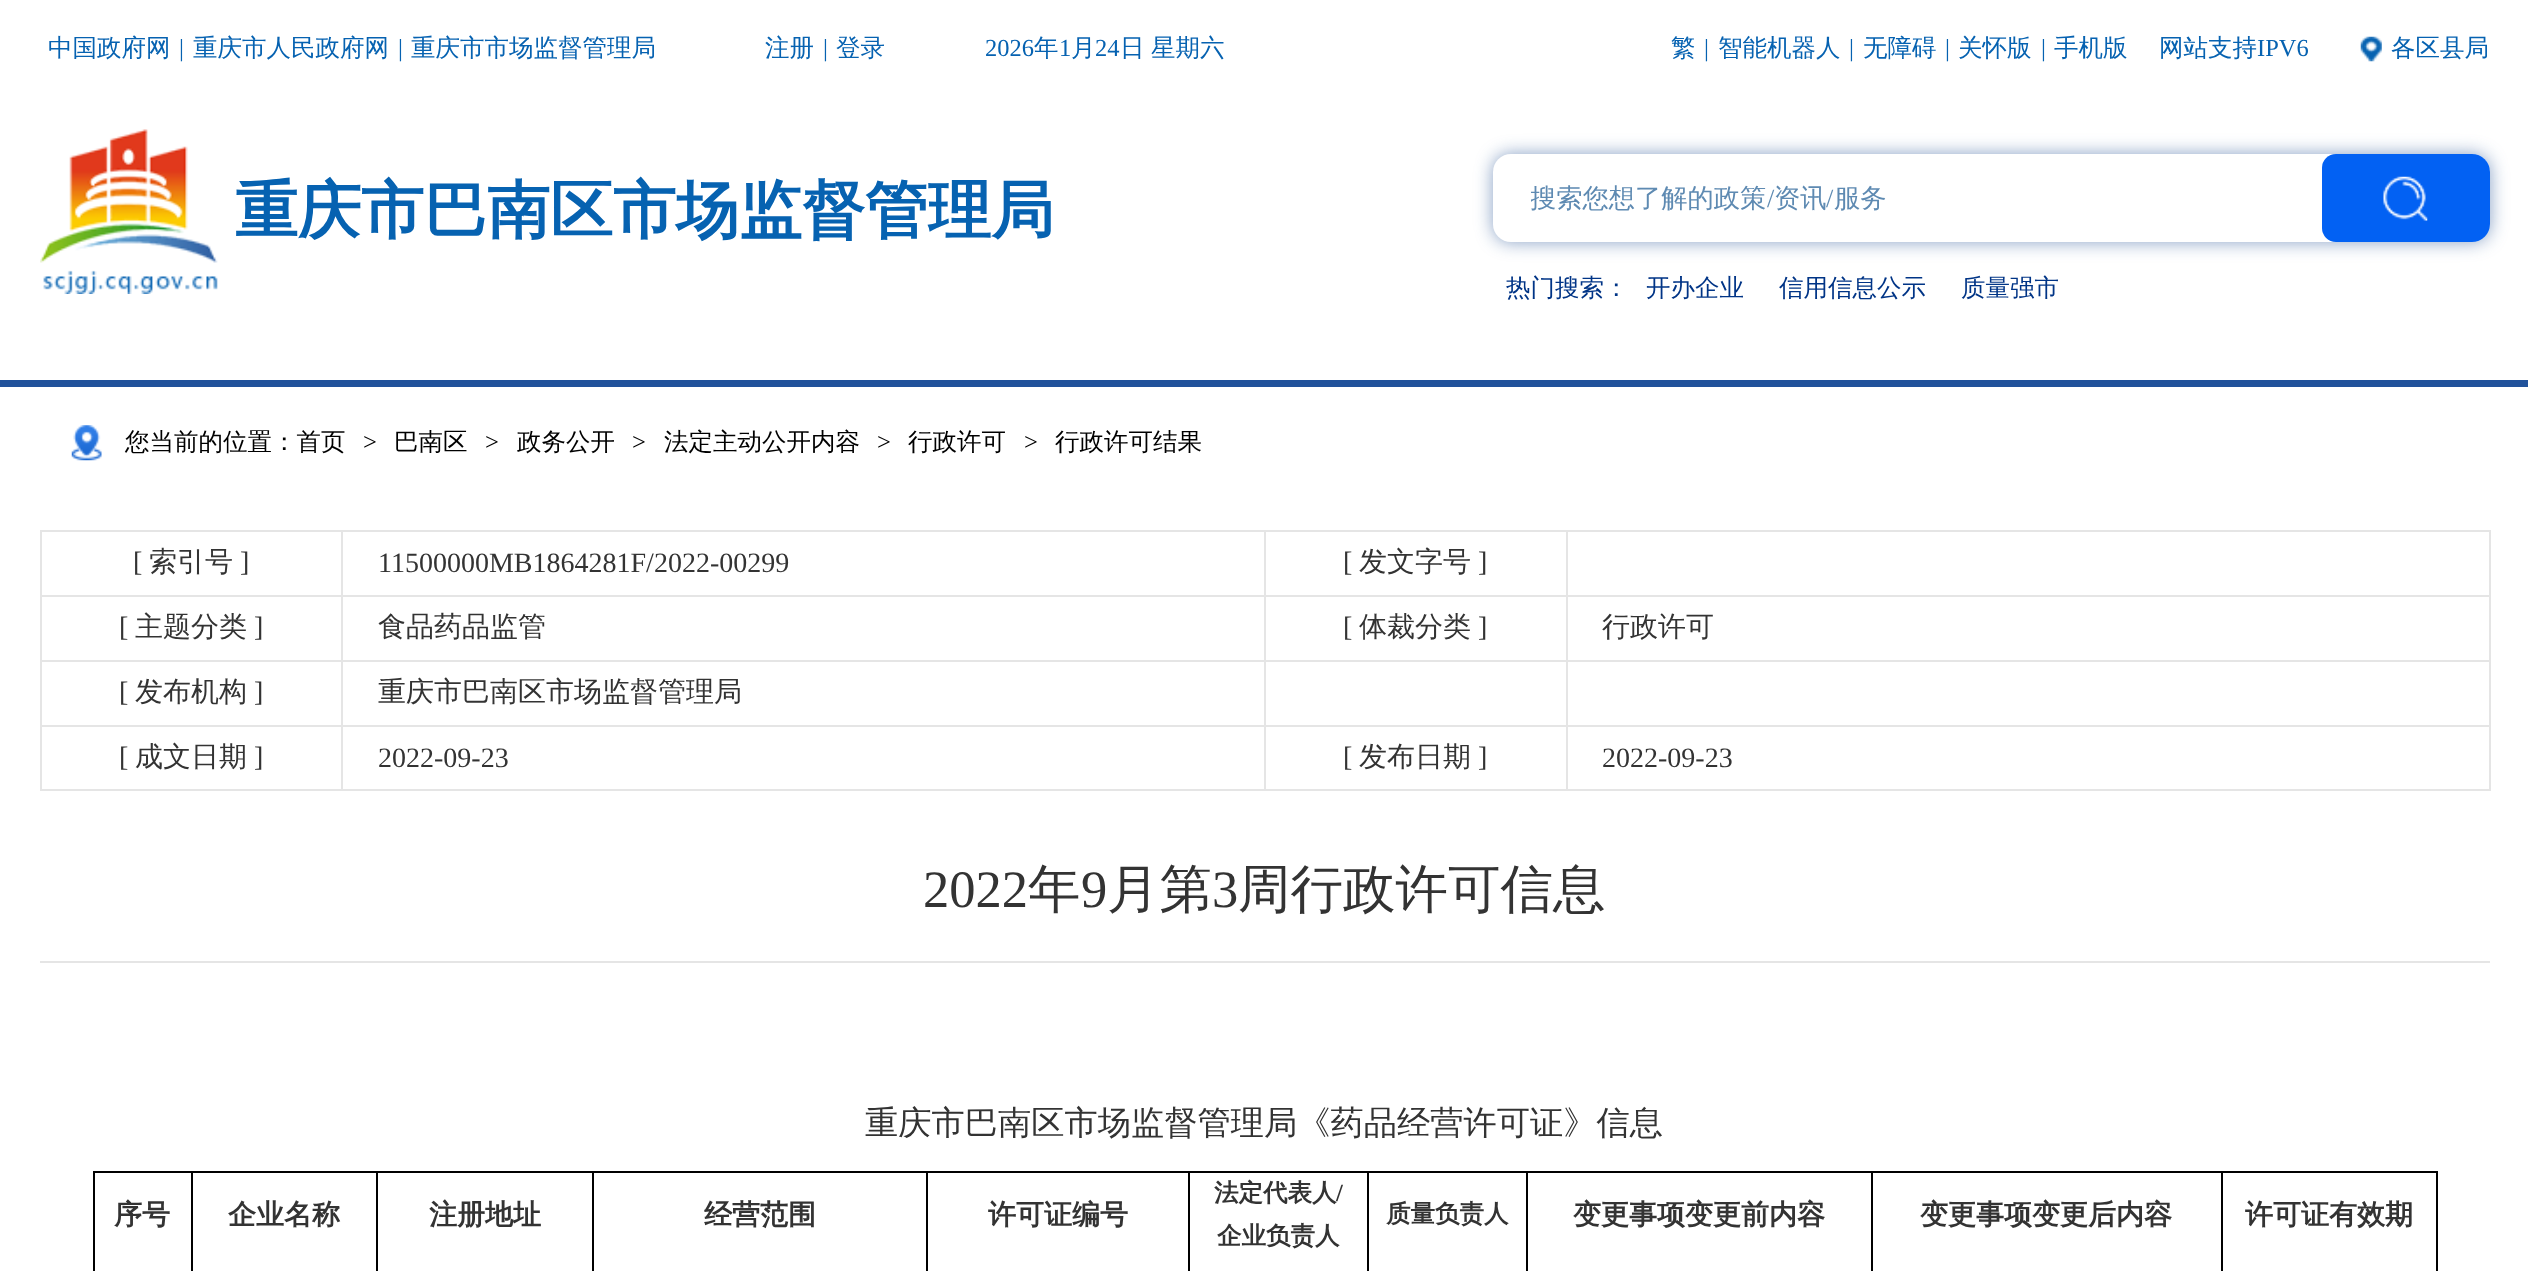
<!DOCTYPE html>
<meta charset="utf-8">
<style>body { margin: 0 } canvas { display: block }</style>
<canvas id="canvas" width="2528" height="1271"></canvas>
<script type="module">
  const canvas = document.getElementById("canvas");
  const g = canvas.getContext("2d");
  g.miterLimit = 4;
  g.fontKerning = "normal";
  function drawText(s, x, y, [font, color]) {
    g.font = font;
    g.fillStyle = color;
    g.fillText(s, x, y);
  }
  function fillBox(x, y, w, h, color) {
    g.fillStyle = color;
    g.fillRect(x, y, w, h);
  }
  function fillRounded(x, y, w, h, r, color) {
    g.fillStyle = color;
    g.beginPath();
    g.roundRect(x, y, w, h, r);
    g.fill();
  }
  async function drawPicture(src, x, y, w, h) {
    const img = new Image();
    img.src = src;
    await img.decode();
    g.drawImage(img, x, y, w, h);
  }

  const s1 = ["500 24.5px WenQuanYi Zen Hei", "#0662B1"];
  const s2 = ["24.5px Liberation Serif", "#0662B1"];
  const s3 = ["bold 63px WenQuanYi Zen Hei", "#0662B1"];
  const s4 = ["500 26.25px WenQuanYi Zen Hei", "#5E8AB2"];
  const s5 = ["26.25px Liberation Serif", "#5E8AB2"];
  const s6 = ["500 24.5px WenQuanYi Zen Hei", "#003486"];
  const s7 = ["500 24.5px WenQuanYi Zen Hei", "#000000"];
  const s8 = ["24.5px Liberation Serif", "#000000"];
  const s9 = ["28px Liberation Serif", "#333333"];
  const s10 = ["500 28px WenQuanYi Zen Hei", "#333333"];
  const s11 = ["52.5px Liberation Serif", "#333333"];
  const s12 = ["500 52.5px WenQuanYi Zen Hei", "#333333"];
  const s13 = ["500 33.25px WenQuanYi Zen Hei", "#333333"];
  const s14 = ["bold 28px WenQuanYi Zen Hei", "#333333"];
  const s15 = ["bold 24.5px WenQuanYi Zen Hei", "#333333"];
  const s16 = ["bold 24.5px Liberation Serif", "#333333"];

  fillBox(0, 0, 2528, 1271, "#FFFFFF");
  fillBox(0, 380, 2528, 7, "#21529B");
  drawText("中国政府网", 48, 56, s1);
  drawText("|", 179, 56, s2);
  drawText("重庆市人民政府网", 193, 56, s1);
  drawText("|", 398, 56, s2);
  drawText("重庆市市场监督管理局", 411, 56, s1);
  drawText("注册", 765, 56, s1);
  drawText("|", 823, 56, s2);
  drawText("登录", 836, 56, s1);
  drawText("2026", 985, 56, s2);
  drawText("年", 1034, 56, s1);
  drawText("1", 1059, 56, s2);
  drawText("月", 1071, 56, s1);
  drawText("24", 1095, 56, s2);
  drawText("日", 1120, 56, s1);
  drawText("星期六", 1151, 56, s1);
  drawText("繁", 1671, 56, s1);
  drawText("|", 1704, 56, s2);
  drawText("智能机器人", 1718, 56, s1);
  drawText("|", 1849, 56, s2);
  drawText("无障碍", 1863, 56, s1);
  drawText("|", 1945, 56, s2);
  drawText("关怀版", 1958, 56, s1);
  drawText("|", 2041, 56, s2);
  drawText("手机版", 2054, 56, s1);
  drawText("网站支持", 2159, 56, s1);
  drawText("IPV6", 2257, 56, s2);
  await drawPicture("pic1.png", 2360, 36, 22, 26);
  drawText("各区县局", 2391, 56, s1);
  await drawPicture("pic2.png", 40, 129, 178, 165);
  drawText("重庆市巴南区市场监督管理局", 235, 232, s3);
  g.fillStyle = "rgba(8, 60, 135, 0.49)";
  g.filter = "blur(9px)";
  g.beginPath();
  g.roundRect(1493, 154, 997, 88, 18);
  g.fill();
  g.filter = "none";
  fillRounded(1493, 154, 997, 88, 18, "#FFFFFF");
  g.save();
  g.beginPath();
  g.rect(1531, 182, 753, 33);
  g.clip();
  drawText("搜索您想了解的政策", 1530, 207, s4);
  g.restore();
  drawText("/", 1767, 207, s5);
  drawText("资讯", 1774, 207, s4);
  drawText("/", 1826, 207, s5);
  drawText("服务", 1834, 207, s4);
  g.fillStyle = "#0261F3";
  g.beginPath();
  g.roundRect(2322, 154, 168, 88, [14, 18, 18, 14]);
  g.fill();
  await drawPicture("pic3.png", 2383, 176, 45, 45);
  drawText("热门搜索：", 1506, 296, s6);
  drawText("开办企业", 1646, 296, s6);
  drawText("信用信息公示", 1779, 296, s6);
  drawText("质量强市", 1961, 296, s6);
  await drawPicture("pic4.png", 71, 425, 31, 36);
  drawText("您当前的位置：首页", 125, 450, s7);
  drawText(">", 363, 450, s8);
  drawText("巴南区", 394, 450, s7);
  drawText(">", 485, 450, s8);
  drawText("政务公开", 517, 450, s7);
  drawText(">", 632, 450, s8);
  drawText("法定主动公开内容", 664, 450, s7);
  drawText(">", 877, 450, s8);
  drawText("行政许可", 908, 450, s7);
  drawText(">", 1024, 450, s8);
  drawText("行政许可结果", 1055, 450, s7);
  fillBox(40, 530, 2450, 2, "#E5E5E5");
  fillBox(2489, 530, 2, 261, "#E5E5E5");
  fillBox(40, 789, 2450, 2, "#E5E5E5");
  fillBox(40, 530, 2, 261, "#E5E5E5");
  drawText("[", 133, 571, s9);
  drawText("索引号", 149, 571, s10);
  drawText("]", 240, 571, s9);
  drawText("11500000MB1864281F/2022-00299", 378, 572, s9);
  drawText("[", 1343, 571, s9);
  drawText("发文字号", 1359, 571, s10);
  drawText("]", 1478, 571, s9);
  fillBox(40, 595, 2450, 2, "#E5E5E5");
  drawText("[", 119, 636, s9);
  drawText("主题分类", 135, 636, s10);
  drawText("]", 254, 636, s9);
  drawText("食品药品监管", 378, 636, s10);
  drawText("[", 1343, 636, s9);
  drawText("体裁分类", 1359, 636, s10);
  drawText("]", 1478, 636, s9);
  drawText("行政许可", 1602, 636, s10);
  fillBox(40, 660, 2450, 2, "#E5E5E5");
  drawText("[", 119, 701, s9);
  drawText("发布机构", 135, 701, s10);
  drawText("]", 254, 701, s9);
  drawText("重庆市巴南区市场监督管理局", 378, 701, s10);
  fillBox(40, 725, 2450, 2, "#E5E5E5");
  drawText("[", 119, 766, s9);
  drawText("成文日期", 135, 766, s10);
  drawText("]", 254, 766, s9);
  fillBox(341, 530, 2, 261, "#E5E5E5");
  drawText("2022-09-23", 378, 767, s9);
  fillBox(1264, 530, 2, 261, "#E5E5E5");
  drawText("[", 1343, 766, s9);
  drawText("发布日期", 1359, 766, s10);
  drawText("]", 1478, 766, s9);
  fillBox(1566, 530, 2, 261, "#E5E5E5");
  drawText("2022-09-23", 1602, 767, s9);
  drawText("2022", 923, 907, s11);
  drawText("年", 1028, 907, s12);
  drawText("9", 1081, 907, s11);
  drawText("月第", 1107, 907, s12);
  drawText("3", 1212, 907, s11);
  drawText("周行政许可信息", 1238, 907, s12);
  fillBox(40, 961, 2450, 2, "#E5E5E5");
  drawText("重庆市巴南区市场监督管理局《药品经营许可证》信息", 865, 1134, s13);
  fillBox(93, 1171, 2345, 2, "#000000");
  fillBox(191, 1171, 2, 100, "#000000");
  fillBox(93, 1171, 2, 100, "#000000");
  drawText("序号", 114, 1224, s14);
  fillBox(376, 1171, 2, 100, "#000000");
  drawText("企业名称", 228, 1224, s14);
  fillBox(592, 1171, 2, 100, "#000000");
  drawText("注册地址", 429, 1224, s14);
  fillBox(926, 1171, 2, 100, "#000000");
  drawText("经营范围", 704, 1224, s14);
  fillBox(1188, 1171, 2, 100, "#000000");
  drawText("许可证编号", 988, 1224, s14);
  fillBox(1367, 1171, 2, 100, "#000000");
  drawText("法定代表人", 1214, 1201, s15);
  drawText("/", 1336, 1201, s16);
  drawText("企业负责人", 1217, 1244, s15);
  fillBox(1526, 1171, 2, 100, "#000000");
  drawText("质量负责人", 1386, 1222, s15);
  fillBox(1871, 1171, 2, 100, "#000000");
  drawText("变更事项变更前内容", 1573, 1224, s14);
  fillBox(2221, 1171, 2, 100, "#000000");
  drawText("变更事项变更后内容", 1920, 1224, s14);
  fillBox(2436, 1171, 2, 100, "#000000");
  drawText("许可证有效期", 2245, 1224, s14);
</script>
